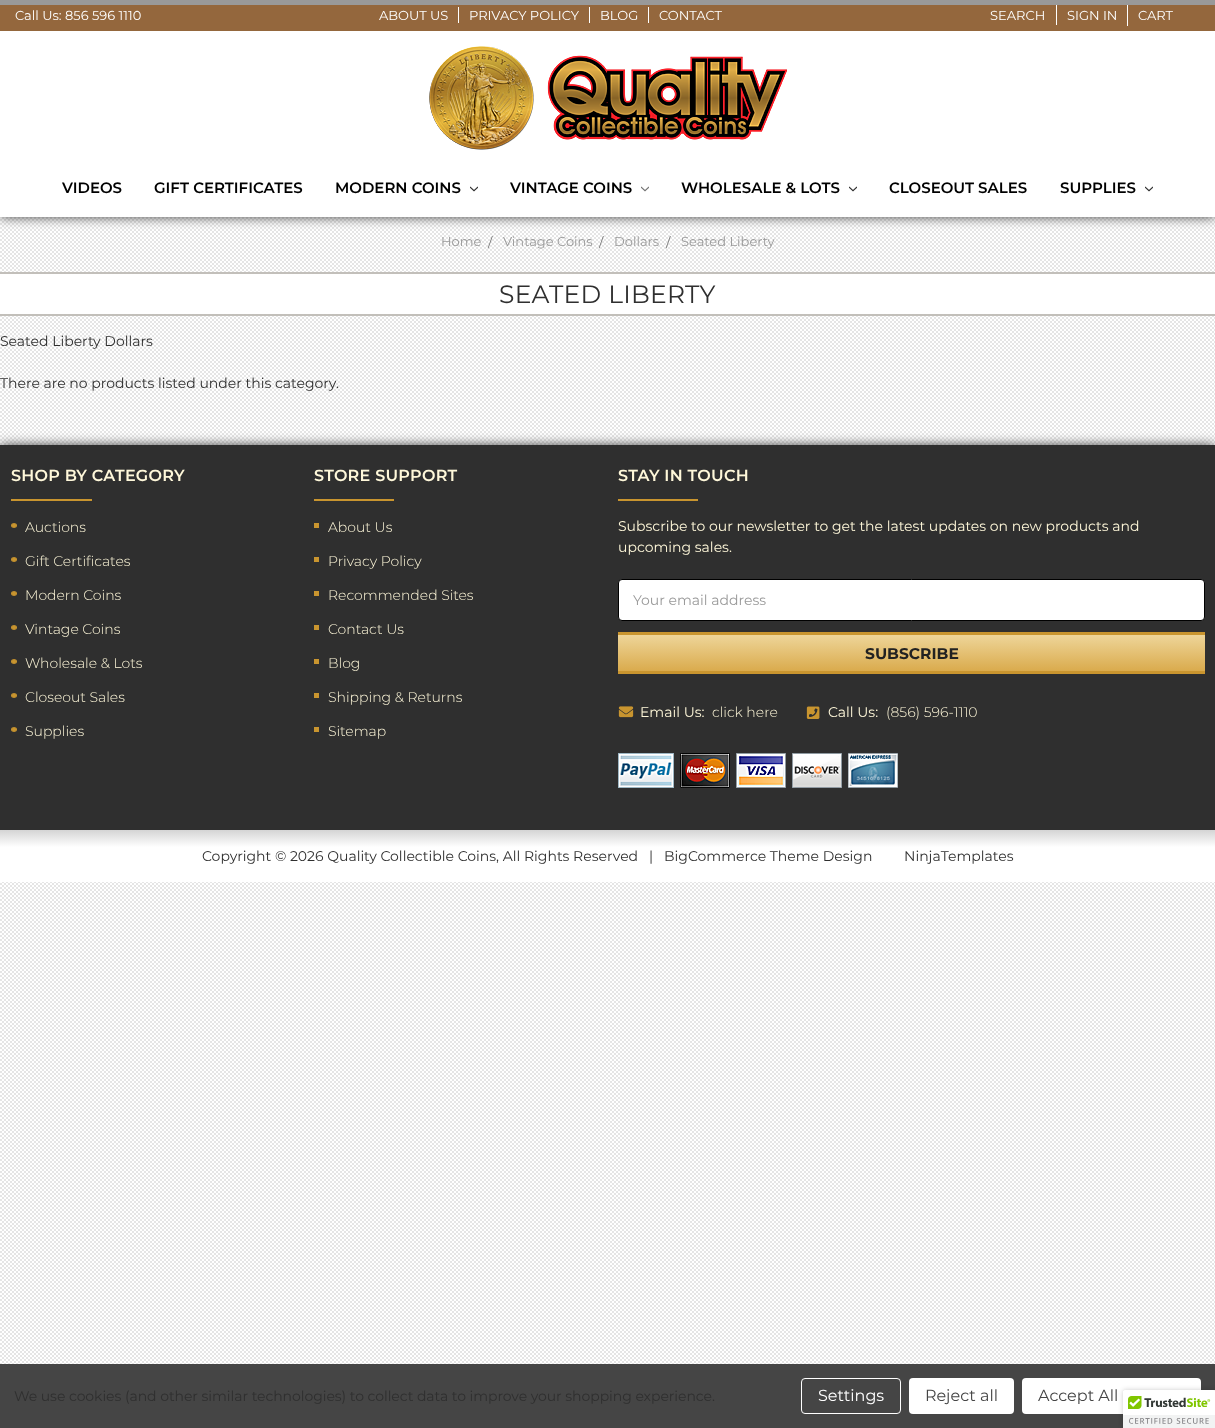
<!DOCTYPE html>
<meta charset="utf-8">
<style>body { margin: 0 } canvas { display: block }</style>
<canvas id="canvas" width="1215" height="1428"></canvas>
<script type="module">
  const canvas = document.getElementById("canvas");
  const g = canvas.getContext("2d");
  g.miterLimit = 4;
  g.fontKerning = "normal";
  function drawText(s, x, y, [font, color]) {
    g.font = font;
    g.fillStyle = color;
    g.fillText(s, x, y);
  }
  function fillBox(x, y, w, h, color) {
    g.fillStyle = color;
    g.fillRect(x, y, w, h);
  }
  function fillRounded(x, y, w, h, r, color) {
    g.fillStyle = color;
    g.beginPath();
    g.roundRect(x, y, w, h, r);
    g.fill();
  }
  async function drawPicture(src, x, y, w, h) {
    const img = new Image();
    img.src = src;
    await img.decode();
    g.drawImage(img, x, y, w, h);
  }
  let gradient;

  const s1 = ["13px Montserrat", "#FFFFFF"];
  const s2 = ["600 15px Montserrat", "#000000"];
  const s3 = ["13px Montserrat", "#999999"];
  const s4 = ["13px Montserrat", "#757575"];
  const s5 = ["25px Montserrat", "#2F2F2F"];
  const s6 = ["14px Montserrat", "#2F2F2F"];
  const s7 = ["600 16px Montserrat", "#FFF8DA"];
  const s8 = ["300 14px Montserrat", "#FFF8DA"];
  const s9 = ["14px Montserrat", "#FFF8DA"];
  const s10 = ["14px Montserrat", "#999999"];
  const s11 = ["bold 15.5px Montserrat", "#222222"];
  const s12 = ["16px Montserrat", "#FFFFFF"];
  const s13 = ["16px Montserrat", "#454545"];

  fillBox(0, 0, 1215, 1428, "#FFFFFF");
  await drawPicture("pic1.png", 0, 217, 1215, 1147);
  fillBox(0, 0, 1215, 5, "#999999");
  g.fillStyle = "#444444";
  g.filter = "blur(6px)";
  g.beginPath();
  g.rect(0, 31, 1215, 186);
  g.fill();
  g.filter = "none";
  fillBox(0, 5, 1215, 26, "#94673D");
  drawText("Call Us: 856 596 1110", 15, 20, s1);
  drawText("ABOUT US", 379, 20, s1);
  fillBox(458, 7, 1, 16, "#FFFFFF");
  drawText("PRIVACY POLICY", 469, 20, s1);
  fillBox(589, 7, 1, 16, "#FFFFFF");
  drawText("BLOG", 600, 20, s1);
  fillBox(648, 7, 1, 16, "#FFFFFF");
  drawText("CONTACT", 659, 20, s1);
  fillBox(1056, 5, 1, 20, "#FFFFFF");
  drawText("SEARCH", 990, 20, s1);
  fillBox(1127, 5, 1, 21, "#FFFFFF");
  drawText("SIGN IN", 1067, 20, s1);
  drawText("CART", 1138, 20, s1);
  fillBox(0, 31, 1215, 186, "#FFFFFF");
  await drawPicture("pic2.png", 429, 46, 358, 104);
  drawText("VIDEOS", 62, 193, s2);
  drawText("GIFT CERTIFICATES", 154, 193, s2);
  drawText("MODERN COINS", 335, 193, s2);
  await drawPicture("pic3.png", 470, 186, 8, 6);
  drawText("VINTAGE COINS", 510, 193, s2);
  await drawPicture("pic4.png", 641, 186, 8, 6);
  drawText("WHOLESALE & LOTS", 681, 193, s2);
  await drawPicture("pic3.png", 849, 186, 8, 6);
  drawText("CLOSEOUT SALES", 889, 193, s2);
  drawText("SUPPLIES", 1060, 193, s2);
  await drawPicture("pic3.png", 1145, 186, 8, 6);
  drawText("Home", 441, 246, s3);
  drawText("/", 488, 247, s4);
  drawText("Vintage Coins", 503, 246, s3);
  drawText("/", 599, 247, s4);
  drawText("Dollars", 614, 246, s3);
  drawText("/", 666, 247, s4);
  drawText("Seated Liberty", 681, 246, s3);
  fillBox(0, 274, 1215, 40, "#FFFFFF");
  fillBox(0, 272, 1215, 2, "#C2BFBA");
  fillBox(0, 314, 1215, 2, "#C2BFBA");
  g.letterSpacing = "0.25px";
  drawText("SEATED LIBERTY", 499, 303, s5);
  g.letterSpacing = "0px";
  drawText("Seated Liberty Dollars", 0, 346, s6);
  drawText("There are no products listed under this category.", 0, 388, s6);
  g.fillStyle = "#444444";
  g.filter = "blur(6px)";
  g.beginPath();
  g.rect(0, 445, 1215, 385);
  g.fill();
  g.filter = "none";
  fillBox(0, 445, 1215, 385, "#2F2F2F");
  fillBox(11, 499, 81, 2, "#C9952F");
  g.letterSpacing = "0.25px";
  drawText("SHOP BY CATEGORY", 11, 481, s7);
  await drawPicture("pic5.png", 11, 523, 6, 5);
  g.letterSpacing = "0px";
  drawText("Auctions", 25, 532, s8);
  await drawPicture("pic5.png", 11, 557, 6, 5);
  drawText("Gift Certificates", 25, 566, s8);
  await drawPicture("pic5.png", 11, 591, 6, 5);
  drawText("Modern Coins", 25, 600, s8);
  await drawPicture("pic5.png", 11, 625, 6, 5);
  drawText("Vintage Coins", 25, 634, s8);
  await drawPicture("pic5.png", 11, 659, 6, 5);
  drawText("Wholesale & Lots", 25, 668, s8);
  await drawPicture("pic5.png", 11, 693, 6, 5);
  drawText("Closeout Sales", 25, 702, s8);
  await drawPicture("pic5.png", 11, 727, 6, 5);
  drawText("Supplies", 25, 736, s8);
  fillBox(314, 499, 80, 2, "#C9952F");
  g.letterSpacing = "0.25px";
  drawText("STORE SUPPORT", 314, 481, s7);
  fillBox(314, 523, 5, 5, "#C9952F");
  g.letterSpacing = "0px";
  drawText("About Us", 328, 532, s8);
  fillBox(314, 557, 5, 5, "#C9952F");
  drawText("Privacy Policy", 328, 566, s8);
  fillBox(314, 591, 5, 5, "#C9952F");
  drawText("Recommended Sites", 328, 600, s8);
  fillBox(314, 625, 5, 5, "#C9952F");
  drawText("Contact Us", 328, 634, s8);
  fillBox(314, 659, 5, 5, "#C9952F");
  drawText("Blog", 328, 668, s8);
  fillBox(314, 693, 5, 5, "#C9952F");
  drawText("Shipping & Returns", 328, 702, s8);
  fillBox(314, 727, 5, 5, "#C9952F");
  drawText("Sitemap", 328, 736, s8);
  fillBox(618, 499, 80, 2, "#C9952F");
  g.letterSpacing = "0.25px";
  drawText("STAY IN TOUCH", 618, 481, s7);
  g.letterSpacing = "0px";
  drawText("Subscribe to our newsletter to get the latest updates on new products and", 618, 531, s9);
  drawText("upcoming sales.", 618, 552, s9);
  g.fillStyle = "#FFFFFF";
  g.beginPath();
  g.roundRect(618.5, 579.5, 586, 41, 3.5);
  g.fill();
  g.strokeStyle = "#000000";
  g.stroke();
  drawText("Your email address", 633, 605, s10);
  gradient = g.createLinearGradient(912, 635, 912, 671);
  gradient.addColorStop(0, "#EED599");
  gradient.addColorStop(1, "#DAAB4D");
  g.fillStyle = gradient;
  g.fillRect(618, 635, 587, 36);
  fillBox(618, 632, 587, 3, "#C9952F");
  fillBox(618, 671, 587, 3, "#C9952F");
  drawText("SUBSCRIBE", 865, 659, s11);
  await drawPicture("pic6.png", 618, 706, 16, 12);
  drawText("Email Us:", 640, 717, s9);
  drawText("click here", 712, 717, s8);
  await drawPicture("pic7.png", 806, 706, 14, 13);
  drawText("Call Us:", 828, 717, s9);
  drawText("(856) 596-1110", 886, 717, s8);
  await drawPicture("pic8.png", 618, 753, 280, 35);
  gradient = g.createLinearGradient(608, 830, 608, 882);
  gradient.addColorStop(0, "#D4D4D4");
  gradient.addColorStop(0.33, "#FFFFFF");
  g.fillStyle = gradient;
  g.fillRect(0, 830, 1215, 52);
  drawText("Copyright © 2026 Quality Collectible Coins, All Rights Reserved", 202, 861, s6);
  drawText("|", 649, 861, s6);
  drawText("BigCommerce Theme Design", 664, 861, s6);
  drawText("NinjaTemplates", 904, 861, s6);
  fillBox(0, 1364, 1215, 64, "#454545");
  g.letterSpacing = "-0.05px";
  drawText("We use cookies (and other similar technologies) to collect data to improve your shopping experience.", 14, 1401, s6);
  g.beginPath();
  g.roundRect(801.5, 1378.5, 99, 35, 3.5);
  g.strokeStyle = "#FFFFFF";
  g.stroke();
  g.letterSpacing = "0px";
  drawText("Settings", 818, 1401, s12);
  fillRounded(909, 1378, 105, 36, 4, "#FFFFFF");
  drawText("Reject all", 925, 1401, s13);
  fillRounded(1022, 1378, 179, 36, 4, "#FFFFFF");
  drawText("Accept All", 1038, 1401, s13);
  g.fillStyle = "rgba(0, 0, 0, 0.2)";
  g.filter = "blur(2.5px)";
  g.beginPath();
  g.roundRect(1123, 1390, 92, 38, 2);
  g.fill();
  g.filter = "none";
  g.fillStyle = "#FFFFFF";
  g.beginPath();
  g.roundRect(1123, 1390, 92, 38, [2, 0, 0, 0]);
  g.fill();
  await drawPicture("pic9.png", 1123, 1390, 92, 38);
</script>
